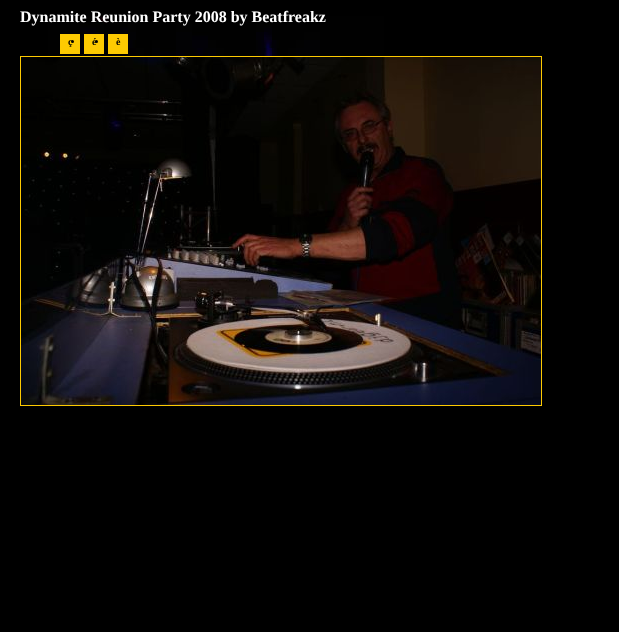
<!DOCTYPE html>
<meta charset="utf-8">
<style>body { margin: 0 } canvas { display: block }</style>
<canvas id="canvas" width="619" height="632"></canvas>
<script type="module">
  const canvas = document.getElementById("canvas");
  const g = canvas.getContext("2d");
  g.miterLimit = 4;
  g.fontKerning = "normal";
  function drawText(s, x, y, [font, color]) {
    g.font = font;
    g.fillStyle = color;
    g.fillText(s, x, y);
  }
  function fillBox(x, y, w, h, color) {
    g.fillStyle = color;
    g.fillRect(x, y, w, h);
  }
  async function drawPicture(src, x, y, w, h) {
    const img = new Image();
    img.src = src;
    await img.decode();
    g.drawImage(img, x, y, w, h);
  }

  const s1 = ["bold 16px Liberation Serif", "#FFFFFF"];
  const s2 = ["bold 10px Liberation Serif", "#000000"];

  fillBox(0, 0, 619, 632, "#000000");
  await drawPicture("pic1.png", 48, 16, 336, 40);
  drawText("Dynamite Reunion Party 2008 by Beatfreakz", 20, 22, s1);
  fillBox(60, 34, 20, 20, "#FDCA01");
  drawText("ç", 68, 45, s2);
  fillBox(84, 34, 20, 20, "#FDCA01");
  g.fillStyle = "#000000";
  g.beginPath();
  g.arc(72.5, 41.5, 1.5, 0, Math.PI * 2);
  g.fill();
  drawText("é", 92, 45, s2);
  fillBox(108, 34, 20, 20, "#FDCA01");
  g.fillStyle = "#000000";
  g.beginPath();
  g.arc(96.5, 41.5, 1.5, 0, Math.PI * 2);
  g.fill();
  drawText("è", 116, 45, s2);
  g.strokeStyle = "#FDCA01";
  g.strokeRect(20.5, 56.5, 521, 349);
  await drawPicture("pic2.png", 21, 57, 520, 348);
</script>
